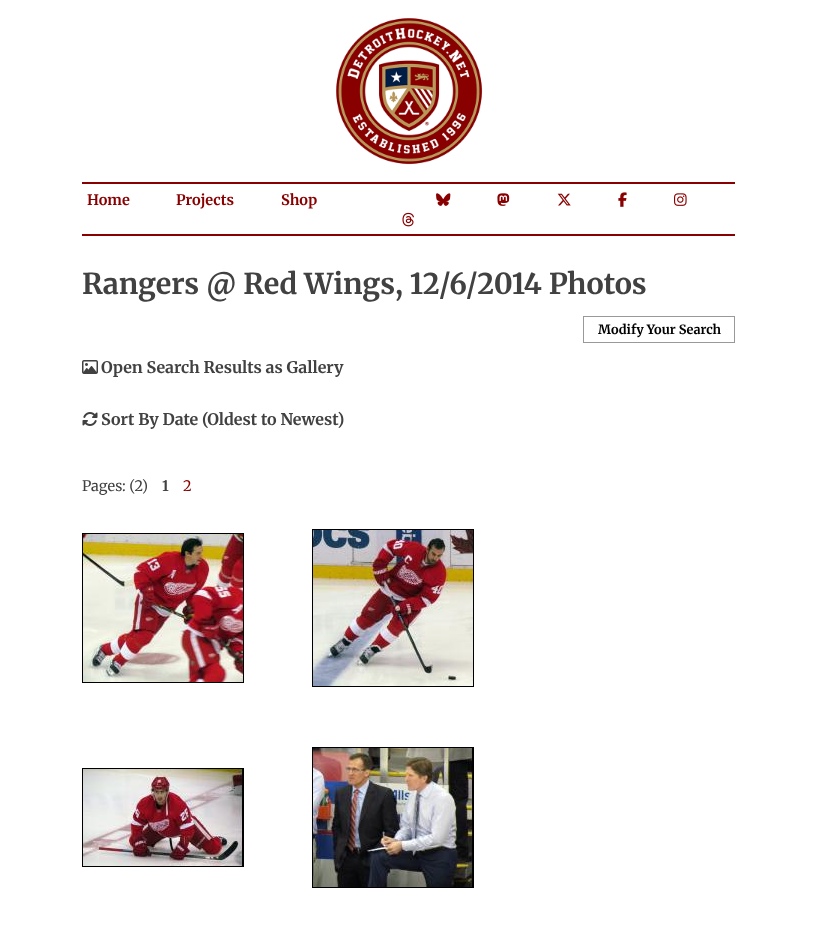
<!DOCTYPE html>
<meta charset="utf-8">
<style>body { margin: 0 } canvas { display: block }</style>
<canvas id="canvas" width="817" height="946"></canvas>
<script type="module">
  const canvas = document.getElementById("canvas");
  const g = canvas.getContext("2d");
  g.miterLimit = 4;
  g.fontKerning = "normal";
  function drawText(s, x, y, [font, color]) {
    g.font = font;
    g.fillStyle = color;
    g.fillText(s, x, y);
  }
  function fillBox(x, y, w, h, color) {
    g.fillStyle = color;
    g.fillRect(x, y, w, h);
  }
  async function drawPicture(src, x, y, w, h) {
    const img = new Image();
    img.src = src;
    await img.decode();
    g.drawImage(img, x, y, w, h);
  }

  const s1 = ["bold 14.5px Merriweather", "#880000"];
  const s2 = ["bold 28.75px Merriweather", "#414141"];
  const s3 = ["bold 12.75px Merriweather", "#000000"];
  const s4 = ["bold 16px Merriweather", "#414141"];
  const s5 = ["14.5px Merriweather", "#414141"];
  const s6 = ["bold 14.5px Merriweather", "#414141"];
  const s7 = ["14.5px Merriweather", "#880000"];

  fillBox(0, 0, 817, 946, "#FFFFFF");
  await drawPicture("pic1.png", 336, 18, 147, 147);
  fillBox(82, 182, 653, 2, "#880000");
  fillBox(82, 234, 653, 2, "#880000");
  drawText("Home", 87, 205, s1);
  drawText("Projects", 176, 205, s1);
  drawText("Shop", 281, 205, s1);
  await drawPicture("pic2.png", 436, 193, 15, 13);
  await drawPicture("pic3.png", 497, 193, 13, 13);
  await drawPicture("pic4.png", 557, 193, 14, 13);
  await drawPicture("pic5.png", 618, 192, 9, 15);
  await drawPicture("pic6.png", 674, 193, 13, 13);
  await drawPicture("pic7.png", 402, 212, 12, 15);
  drawText("Rangers @ Red Wings, 12/6/2014 Photos", 82, 294, s2);
  g.strokeStyle = "#999999";
  g.strokeRect(583.5, 316.5, 151, 26);
  drawText("Modify Your Search", 598, 334, s3);
  await drawPicture("pic8.png", 82, 360, 16, 14);
  drawText("Open Search Results as Gallery", 101, 373, s4);
  await drawPicture("pic9.png", 82, 412, 16, 14);
  drawText("Sort By Date (Oldest to Newest)", 101, 425, s4);
  drawText("Pages: (2)", 82, 491, s5);
  drawText("1", 162, 491, s6);
  drawText("2", 183, 491, s7);
  g.strokeStyle = "#000000";
  g.strokeRect(82.5, 533.5, 161, 149);
  await drawPicture("pic10.png", 83, 534, 160, 148);
  g.strokeRect(312.5, 529.5, 161, 157);
  await drawPicture("pic11.png", 313, 530, 160, 156);
  g.strokeRect(82.5, 768.5, 161, 98);
  await drawPicture("pic12.png", 83, 769, 160, 97);
  g.strokeRect(312.5, 747.5, 161, 140);
  await drawPicture("pic13.png", 313, 748, 160, 139);
</script>
